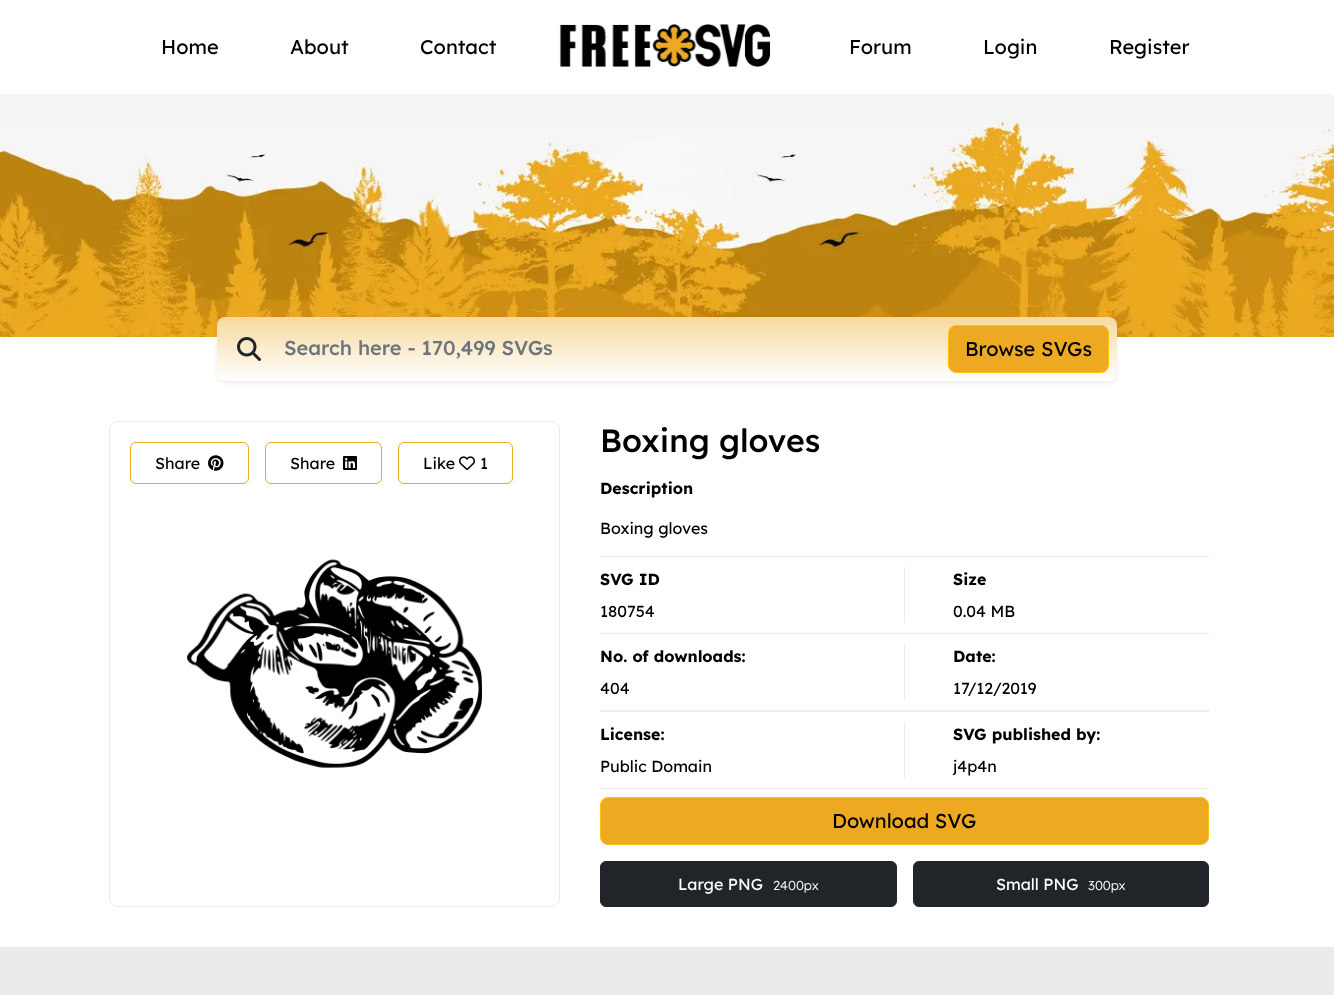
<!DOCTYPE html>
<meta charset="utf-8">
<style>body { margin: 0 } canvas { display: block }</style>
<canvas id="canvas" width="1334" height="995"></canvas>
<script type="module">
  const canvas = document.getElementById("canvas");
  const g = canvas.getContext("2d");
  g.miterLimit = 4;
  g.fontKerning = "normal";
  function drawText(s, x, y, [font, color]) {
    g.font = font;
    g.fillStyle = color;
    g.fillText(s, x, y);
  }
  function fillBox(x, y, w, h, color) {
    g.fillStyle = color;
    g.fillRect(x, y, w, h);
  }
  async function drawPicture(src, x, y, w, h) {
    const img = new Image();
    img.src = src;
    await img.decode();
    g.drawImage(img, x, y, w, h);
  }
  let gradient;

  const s1 = ["20px Lexend", "#000000"];
  const s2 = ["500 20px Lexend", "#6C757D"];
  const s3 = ["16px Lexend", "#000000"];
  const s4 = ["500 32px Lexend", "#000000"];
  const s5 = ["bold 16px Lexend", "#000000"];
  const s6 = ["16px Lexend", "#FFFFFF"];
  const s7 = ["300 13px Lexend", "#FFFFFF"];

  fillBox(0, 0, 1334, 995, "#FFFFFF");
  drawText("Home", 161, 54, s1);
  drawText("About", 290, 54, s1);
  drawText("Contact", 420, 54, s1);
  await drawPicture("pic1.png", 559, 24, 211, 43);
  drawText("Forum", 849, 54, s1);
  drawText("Login", 983, 54, s1);
  drawText("Register", 1109, 54, s1);
  await drawPicture("pic2.png", 0, 94, 1334, 243);
  g.fillStyle = "rgba(0, 0, 0, 0.07)";
  g.filter = "blur(2px)";
  g.beginPath();
  g.roundRect(217, 319, 900, 64, 8);
  g.fill();
  g.filter = "none";
  gradient = g.createLinearGradient(667, 381, 667, 234);
  gradient.addColorStop(0, "#FFFFFF");
  gradient.addColorStop(1, "#EDA922");
  g.fillStyle = gradient;
  g.beginPath();
  g.roundRect(217, 317, 900, 64, 8);
  g.fill();
  await drawPicture("pic3.png", 237, 337, 24, 24);
  drawText("Search here - 170,499 SVGs", 284, 355, s2);
  g.fillStyle = "#EDA922";
  g.beginPath();
  g.roundRect(948.5, 325.5, 160, 47, 7.5);
  g.fill();
  g.strokeStyle = "#FFC107";
  g.stroke();
  drawText("Browse SVGs", 965, 356, s1);
  g.beginPath();
  g.roundRect(109.5, 421.5, 450, 485, 7.5);
  g.strokeStyle = "#ECECEC";
  g.stroke();
  g.beginPath();
  g.roundRect(130.5, 442.5, 118, 41, 5.5);
  g.strokeStyle = "#EDA922";
  g.stroke();
  drawText("Share", 155, 469, s3);
  await drawPicture("pic4.png", 208, 455, 16, 16);
  g.beginPath();
  g.roundRect(265.5, 442.5, 116, 41, 5.5);
  g.stroke();
  drawText("Share", 290, 469, s3);
  await drawPicture("pic5.png", 343, 456, 14, 14);
  g.beginPath();
  g.roundRect(398.5, 442.5, 114, 41, 5.5);
  g.stroke();
  drawText("Like", 423, 469, s3);
  await drawPicture("pic6.png", 459, 456, 16, 14);
  drawText("1", 480, 469, s3);
  await drawPicture("pic7.png", 187, 559, 295, 209);
  drawText("Boxing gloves", 600, 452, s4);
  drawText("Description", 600, 494, s5);
  drawText("Boxing gloves", 600, 534, s3);
  fillBox(600, 556, 609, 1, "#ECECEC");
  fillBox(904, 567, 1, 56, "#ECECEC");
  drawText("SVG ID", 600, 585, s5);
  drawText("180754", 600, 617, s3);
  drawText("Size", 953, 585, s5);
  drawText("0.04 MB", 953, 617, s3);
  fillBox(600, 633, 609, 1, "#ECECEC");
  fillBox(600, 710, 609, 2, "#ECECEC");
  fillBox(904, 644, 1, 56, "#ECECEC");
  drawText("No. of downloads:", 600, 662, s5);
  drawText("404", 600, 694, s3);
  drawText("Date:", 953, 662, s5);
  drawText("17/12/2019", 953, 694, s3);
  fillBox(600, 788, 609, 1, "#ECECEC");
  fillBox(904, 722, 1, 56, "#ECECEC");
  drawText("License:", 600, 740, s5);
  drawText("Public Domain", 600, 772, s3);
  drawText("SVG published by:", 953, 740, s5);
  drawText("j4p4n", 953, 772, s3);
  g.fillStyle = "#EDA922";
  g.beginPath();
  g.roundRect(600.5, 797.5, 608, 47, 7.5);
  g.fill();
  g.strokeStyle = "#FFC107";
  g.stroke();
  drawText("Download SVG", 832, 828, s1);
  g.fillStyle = "#212529";
  g.beginPath();
  g.roundRect(600.5, 861.5, 296, 45, 5.5);
  g.fill();
  g.strokeStyle = "#212529";
  g.stroke();
  drawText("Large PNG", 678, 890, s6);
  drawText("2400px", 773, 890, s7);
  g.fillStyle = "#212529";
  g.beginPath();
  g.roundRect(913.5, 861.5, 295, 45, 5.5);
  g.fill();
  g.stroke();
  drawText("Small PNG", 996, 890, s6);
  drawText("300px", 1088, 890, s7);
  fillBox(0, 947, 1334, 48, "#EBEBEB");
</script>
